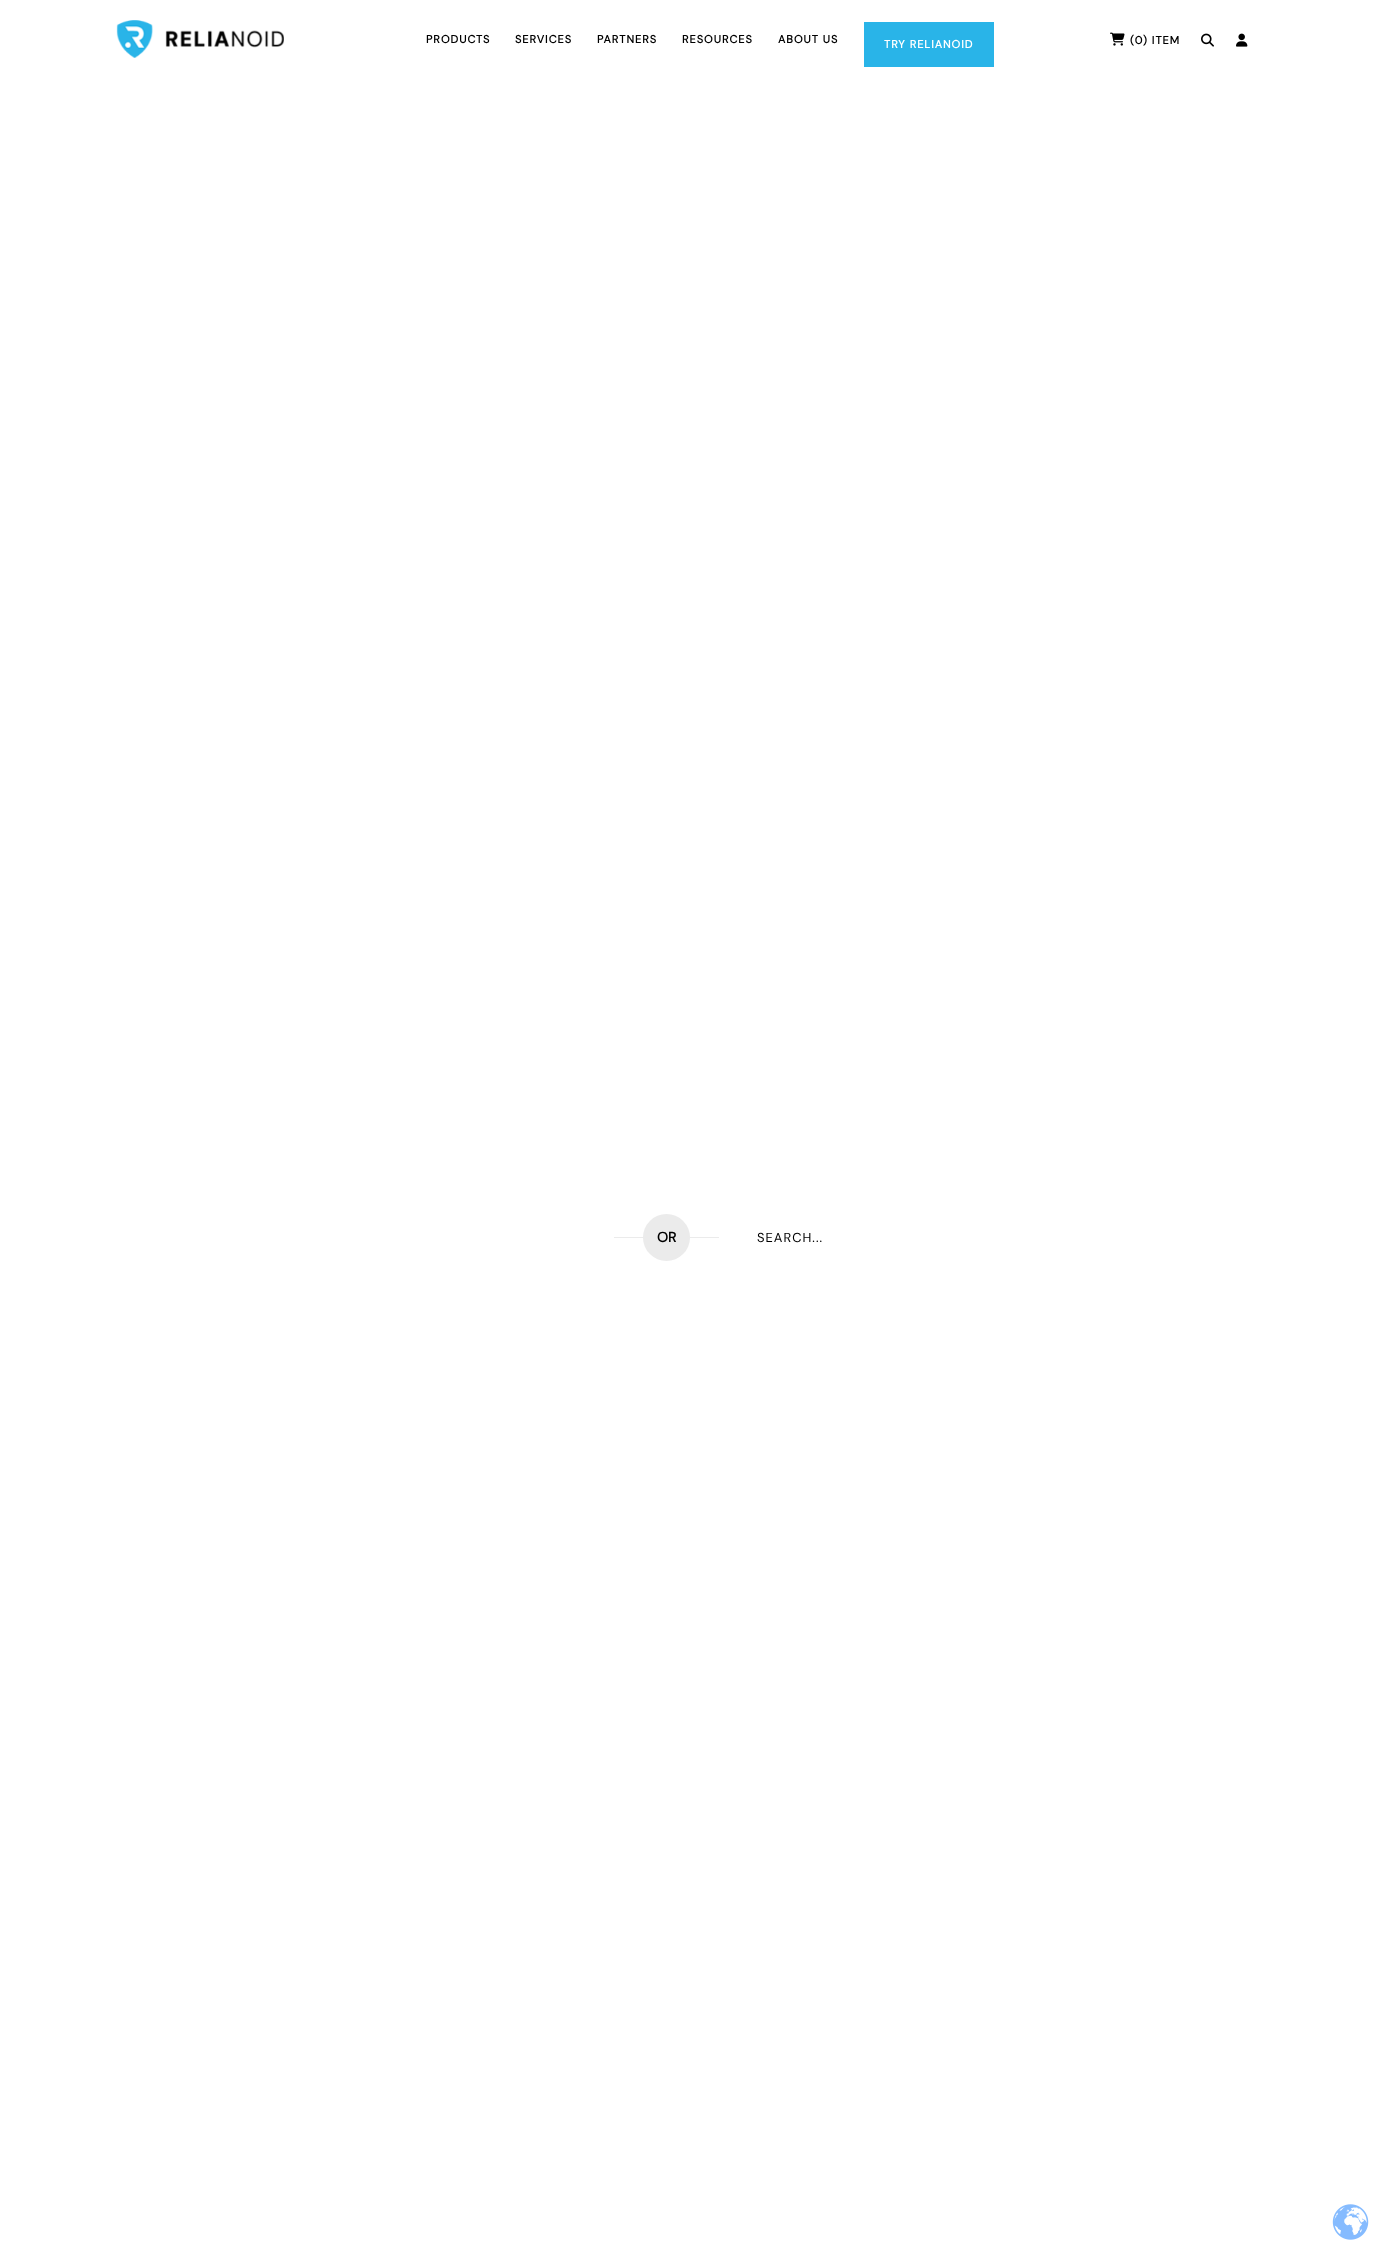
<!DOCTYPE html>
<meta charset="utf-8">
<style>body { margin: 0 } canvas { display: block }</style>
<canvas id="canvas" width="1386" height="2258"></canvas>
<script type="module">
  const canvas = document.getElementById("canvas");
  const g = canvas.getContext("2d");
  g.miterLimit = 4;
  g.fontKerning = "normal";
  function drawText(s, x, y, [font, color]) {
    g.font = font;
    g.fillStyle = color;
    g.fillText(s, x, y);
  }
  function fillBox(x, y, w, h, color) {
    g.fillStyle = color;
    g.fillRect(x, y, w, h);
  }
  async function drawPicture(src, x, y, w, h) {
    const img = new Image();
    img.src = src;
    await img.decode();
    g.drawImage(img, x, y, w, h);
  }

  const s1 = ["bold 11px DM Sans", "#000000"];
  const s2 = ["bold 11px DM Sans", "#FFFFFF"];
  const s3 = ["bold 14px DM Sans", "#000000"];
  const s4 = ["13px DM Sans", "#000000"];

  fillBox(0, 0, 1386, 2258, "#FFFFFF");
  await drawPicture("pic1.png", 116, 20, 168, 38);
  g.letterSpacing = "1px";
  drawText("PRODUCTS", 426, 43, s1);
  drawText("SERVICES", 515, 43, s1);
  drawText("PARTNERS", 597, 43, s1);
  drawText("RESOURCES", 682, 43, s1);
  drawText("ABOUT US", 778, 43, s1);
  fillBox(864, 22, 130, 45, "#29B4E8");
  drawText("TRY RELIANOID", 884, 48, s2);
  await drawPicture("pic2.png", 1110, 32, 15, 14);
  drawText("(0) ITEM", 1130, 44, s1);
  await drawPicture("pic3.png", 1201, 33, 13, 14);
  await drawPicture("pic4.png", 1236, 33, 12, 14);
  g.fillStyle = "#EBEBEB";
  g.beginPath();
  g.arc(666.5, 1237.5, 23.5, 0, Math.PI * 2);
  g.fill();
  fillBox(614, 1237, 30, 1, "#EBEBEB");
  g.letterSpacing = "0px";
  drawText("OR", 657, 1242, s3);
  fillBox(689, 1237, 30, 1, "#EBEBEB");
  g.letterSpacing = "1px";
  drawText("SEARCH...", 757, 1242, s4);
  await drawPicture("pic5.png", 1332, 2204, 37, 36);
</script>
